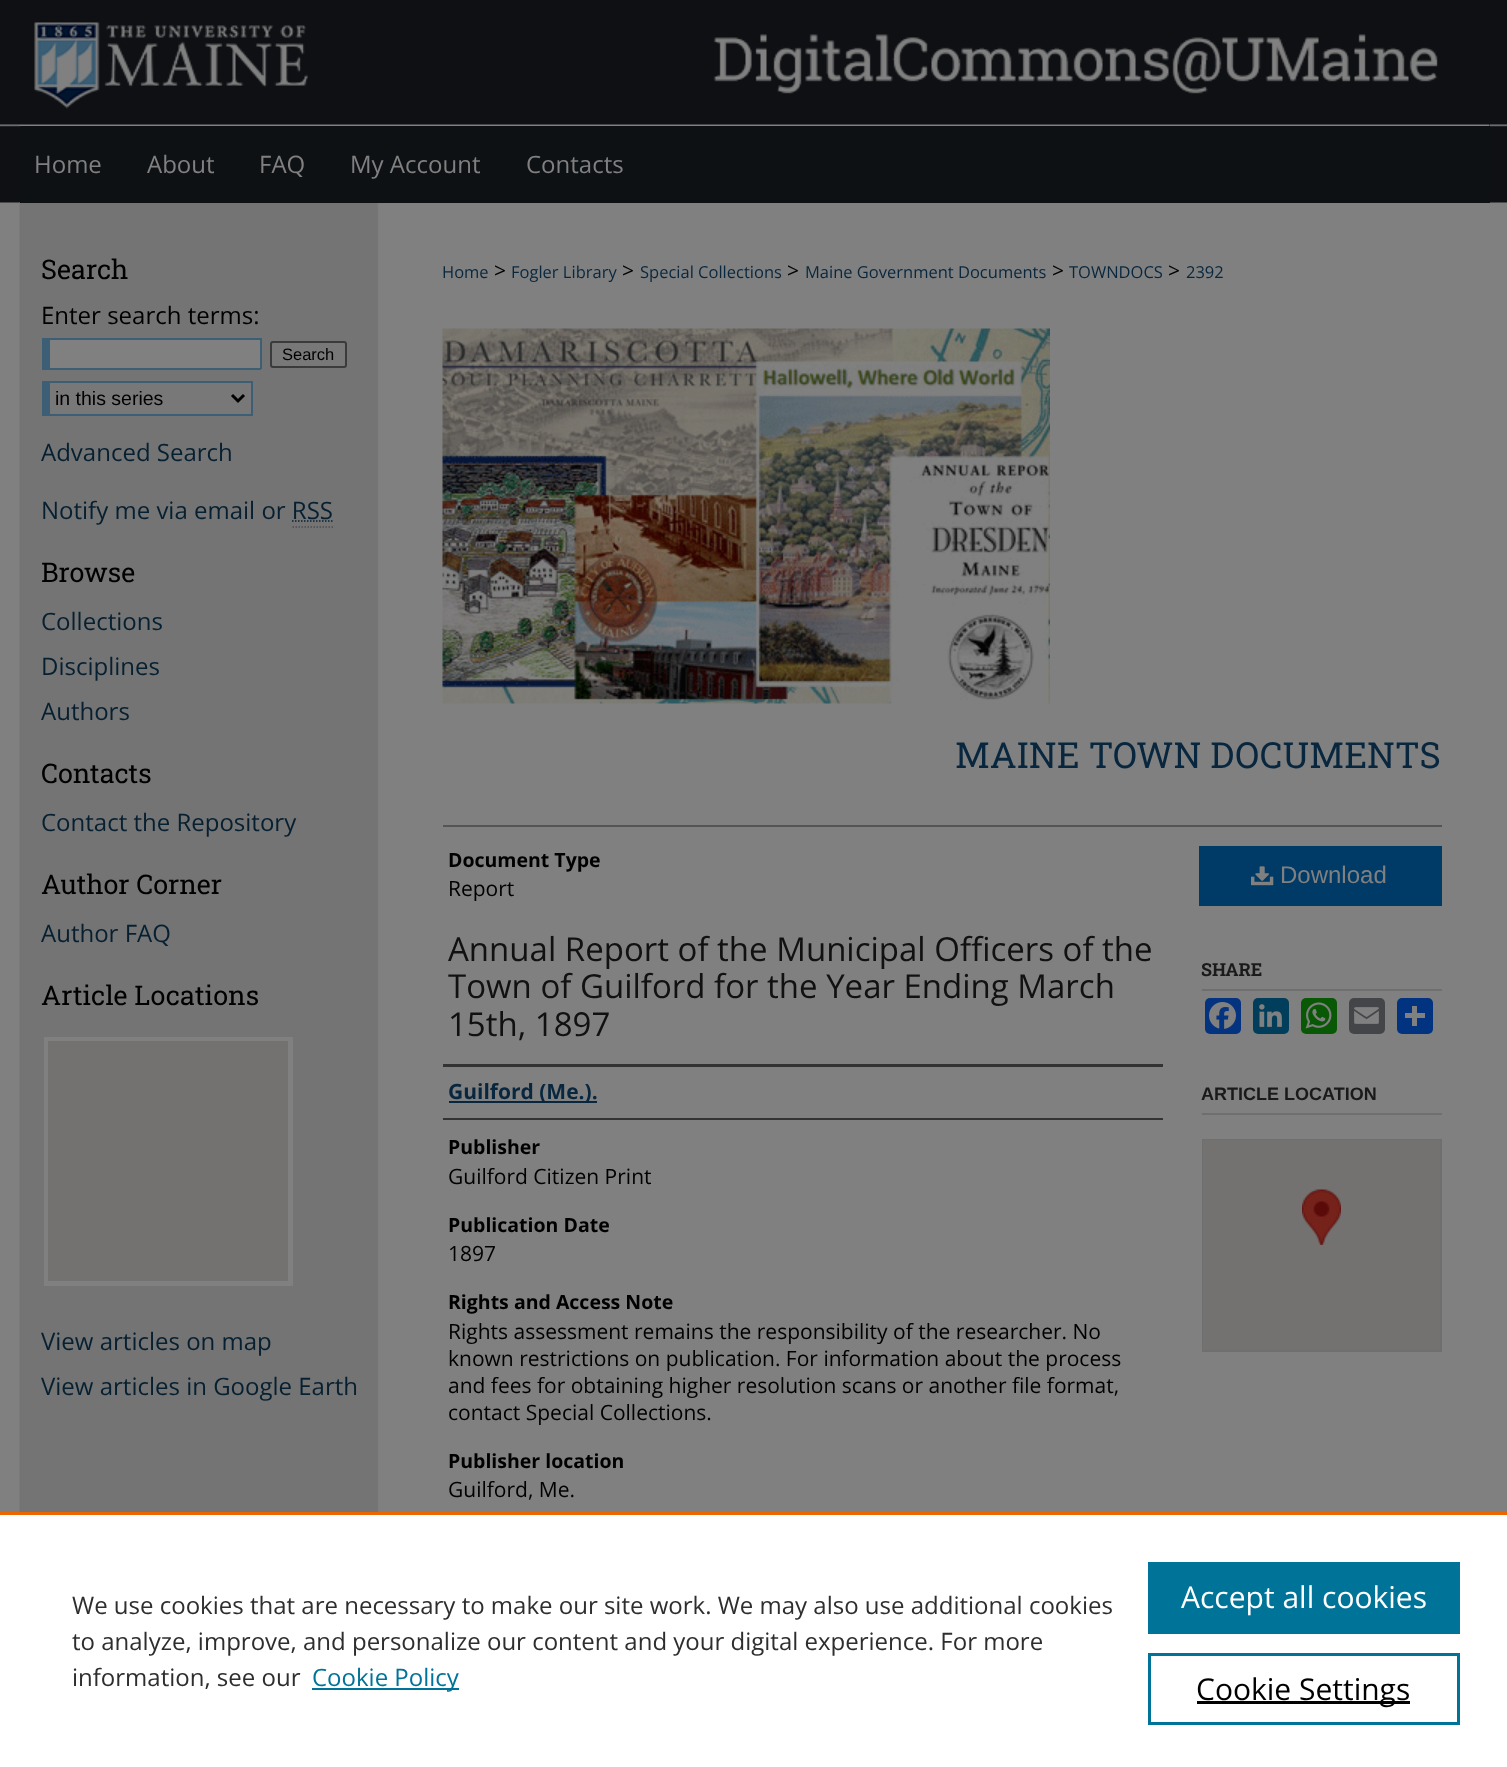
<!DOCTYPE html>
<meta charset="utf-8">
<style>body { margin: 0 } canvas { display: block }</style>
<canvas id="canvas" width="1507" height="1767"></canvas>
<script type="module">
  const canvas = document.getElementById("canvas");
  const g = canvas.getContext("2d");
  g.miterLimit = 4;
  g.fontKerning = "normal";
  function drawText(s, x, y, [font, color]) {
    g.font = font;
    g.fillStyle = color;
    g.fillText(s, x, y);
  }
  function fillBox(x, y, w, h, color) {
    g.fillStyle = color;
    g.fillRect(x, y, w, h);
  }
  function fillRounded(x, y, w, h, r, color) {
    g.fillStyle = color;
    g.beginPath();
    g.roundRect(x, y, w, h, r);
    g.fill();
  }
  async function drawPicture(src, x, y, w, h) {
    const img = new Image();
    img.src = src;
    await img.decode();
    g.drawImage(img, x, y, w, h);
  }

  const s1 = ["24px Open Sans", "#808080"];
  const s2 = ["27px Roboto Slab", "#000000"];
  const s3 = ["24px Open Sans", "#000000"];
  const s4 = ["16.5px Liberation Sans", "#000000"];
  const s5 = ["19.5px Liberation Sans", "#000000"];
  const s6 = ["24px Open Sans", "#072031"];
  const s7 = ["16.5px Open Sans", "#08273E"];
  const s8 = ["21px Open Sans", "#000000"];
  const s9 = ["36px Roboto Slab", "#08273E"];
  const s10 = ["bold 19.5px Open Sans", "#000000"];
  const s11 = ["33px Open Sans", "#111111"];
  const s12 = ["bold 21px Open Sans", "#08273E"];
  const s13 = ["24px Liberation Sans", "#808080"];
  const s14 = ["bold 18px Roboto Slab", "#1A1A1A"];
  const s15 = ["bold 18px Liberation Sans", "#1A1A1A"];
  const s16 = ["24px Open Sans", "#2E2E2E"];
  const s17 = ["24px Open Sans", "#007398"];
  const s18 = ["30px Open Sans", "#FFFFFF"];
  const s19 = ["30px Open Sans", "#000000"];

  fillBox(0, 0, 1507, 1767, "#808080");
  await drawPicture("pic1.png", 0, 0, 1507, 203);
  await drawPicture("pic3.png", 19, 202, 1471, 1310);
  fillBox(20, 124, 1470, 79, "#0E1114");
  await drawPicture("pic2.png", 19, 22, 1471, 104);
  fillBox(19, 125, 1, 1, "#7B7B7B");
  drawText("Home", 34, 173, s1);
  drawText("About", 147, 173, s1);
  drawText("FAQ", 259, 173, s1);
  drawText("My Account", 350, 173, s1);
  drawText("Contacts", 526, 173, s1);
  drawText("Search", 41, 279, s2);
  drawText("Enter search terms:", 41, 324, s3);
  fillBox(50, 340, 210, 28, "#808080");
  fillBox(42, 338, 219, 2, "#3D5F75");
  fillBox(260, 338, 2, 31, "#3D5F75");
  fillBox(42, 368, 219, 2, "#3D5F75");
  fillBox(42, 338, 8, 31, "#3D5F75");
  g.fillStyle = "#787878";
  g.beginPath();
  g.roundRect(271, 342, 75, 25, 2);
  g.fill();
  g.strokeStyle = "#3B3B3B";
  g.lineWidth = 2;
  g.stroke();
  drawText("Search", 282, 360, s4);
  fillBox(50, 383, 201, 31, "#787878");
  fillBox(42, 381, 210, 2, "#3D5F75");
  fillBox(251, 381, 2, 35, "#3D5F75");
  fillBox(42, 414, 210, 2, "#3D5F75");
  fillBox(42, 381, 8, 35, "#3D5F75");
  g.beginPath();
  g.moveTo(232, 395);
  g.lineTo(238, 401);
  g.lineTo(244, 395);
  g.strokeStyle = "#000000";
  g.lineWidth = 3;
  g.stroke();
  drawText("in this series", 55, 405, s5);
  drawText("Advanced Search", 41, 461, s6);
  drawText("Notify me via email or RSS", 41, 519, s6);
  g.beginPath();
  g.moveTo(292, 521);
  g.lineTo(333.5, 521);
  g.strokeStyle = "#072031";
  g.lineWidth = 1.5;
  g.setLineDash([1.5, 1.5]);
  g.stroke();
  g.beginPath();
  g.moveTo(292.5, 527);
  g.lineTo(333, 527);
  g.strokeStyle = "#4D4D4D";
  g.stroke();
  drawText("Browse", 41, 582, s2);
  drawText("Collections", 41, 630, s6);
  drawText("Disciplines", 41, 675, s6);
  drawText("Authors", 41, 720, s6);
  drawText("Contacts", 41, 783, s2);
  drawText("Contact the Repository", 41, 831, s6);
  drawText("Author Corner", 41, 894, s2);
  drawText("Author FAQ", 41, 942, s6);
  drawText("Article Locations", 41, 1005, s2);
  g.strokeStyle = "#808080";
  g.lineWidth = 5;
  g.setLineDash([]);
  g.strokeRect(46.5, 1039.5, 244, 244);
  fillBox(48, 1041, 240, 240, "#737270");
  drawText("View articles on map", 41, 1350, s6);
  drawText("View articles in Google Earth", 41, 1395, s6);
  drawText("Home", 442, 278, s7);
  drawText(">", 494, 278, s8);
  drawText("Fogler Library", 511, 278, s7);
  drawText(">", 622, 278, s8);
  drawText("Special Collections", 640, 278, s7);
  drawText(">", 787, 278, s8);
  drawText("Maine Government Documents", 805, 278, s7);
  drawText(">", 1052, 278, s8);
  drawText("TOWNDOCS", 1069, 278, s7);
  drawText(">", 1168, 278, s8);
  drawText("2392", 1186, 278, s7);
  await drawPicture("pic4.png", 442, 328, 608, 376);
  drawText("MAINE TOWN DOCUMENTS", 955, 768, s9);
  fillBox(443, 825, 999, 2, "#555555");
  drawText("Document Type", 448, 867, s10);
  drawText("Report", 448, 896, s8);
  drawText("Annual Report of the Municipal Officers of the", 448, 961, s11);
  drawText("Town of Guilford for the Year Ending March", 448, 998, s11);
  drawText("15th, 1897", 448, 1036, s11);
  fillBox(443, 1064, 720, 3, "#333333");
  fillBox(443, 1118, 720, 2, "#333333");
  fillBox(449, 1101, 148, 2, "#08273E");
  drawText("Guilford (Me.).", 448, 1099, s12);
  drawText("Publisher", 448, 1154, s10);
  drawText("Guilford Citizen Print", 448, 1184, s8);
  drawText("Publication Date", 448, 1232, s10);
  drawText("1897", 448, 1261, s8);
  drawText("Rights and Access Note", 448, 1309, s10);
  drawText("Rights assessment remains the responsibility of the researcher. No", 448, 1339, s8);
  drawText("known restrictions on publication. For information about the process", 448, 1366, s8);
  drawText("and fees for obtaining higher resolution scans or another file format,", 448, 1393, s8);
  drawText("contact Special Collections.", 448, 1420, s8);
  drawText("Publisher location", 448, 1468, s10);
  drawText("Guilford, Me.", 448, 1497, s8);
  fillBox(1199, 846, 243, 60, "#003A66");
  await drawPicture("pic5.png", 1251, 866, 23, 20);
  drawText("Download", 1280, 883, s13);
  fillBox(1202, 989, 240, 2, "#6F6F6F");
  drawText("SHARE", 1201, 976, s14);
  fillRounded(1205, 998, 36, 36, 5, "#043380");
  await drawPicture("pic6.png", 1209, 1002, 27, 27);
  fillRounded(1253, 998, 36, 36, 5, "#003E5B");
  await drawPicture("pic7.png", 1259, 1004, 23, 23);
  fillRounded(1301, 998, 36, 36, 5, "#095805");
  await drawPicture("pic8.png", 1305, 1002, 27, 27);
  fillRounded(1349, 998, 36, 36, 5, "#444548");
  await drawPicture("pic9.png", 1354, 1007, 25, 17);
  fillRounded(1397, 998, 36, 36, 5, "#013380");
  fillBox(1412, 1006, 5, 20, "#808080");
  fillBox(1405, 1013, 20, 5, "#808080");
  fillBox(1202, 1113, 240, 2, "#6F6F6F");
  drawText("ARTICLE LOCATION", 1201, 1100, s15);
  g.strokeStyle = "#6F6F6F";
  g.lineWidth = 2;
  g.strokeRect(1203, 1140, 238, 211);
  fillBox(1203, 1140, 237, 210, "#737270");
  await drawPicture("pic10.png", 1302, 1189, 39, 56);
  fillBox(0, 1515, 1507, 252, "#FFFFFF");
  fillBox(0, 1512, 1507, 3, "#EB6500");
  drawText("We use cookies that are necessary to make our site work. We may also use additional cookies", 72, 1614, s16);
  drawText("to analyze, improve, and personalize our content and your digital experience. For more", 72, 1650, s16);
  drawText("information, see our", 72, 1686, s16);
  fillBox(312, 1688, 147, 2, "#007398");
  drawText("Cookie Policy", 312, 1686, s17);
  fillBox(1148, 1562, 312, 72, "#007398");
  drawText("Accept all cookies", 1181, 1608, s18);
  g.strokeStyle = "#007398";
  g.lineWidth = 3;
  g.strokeRect(1149.5, 1654.5, 309, 69);
  fillBox(1197, 1701, 213, 3, "#000000");
  drawText("Cookie Settings", 1196, 1700, s19);
</script>
